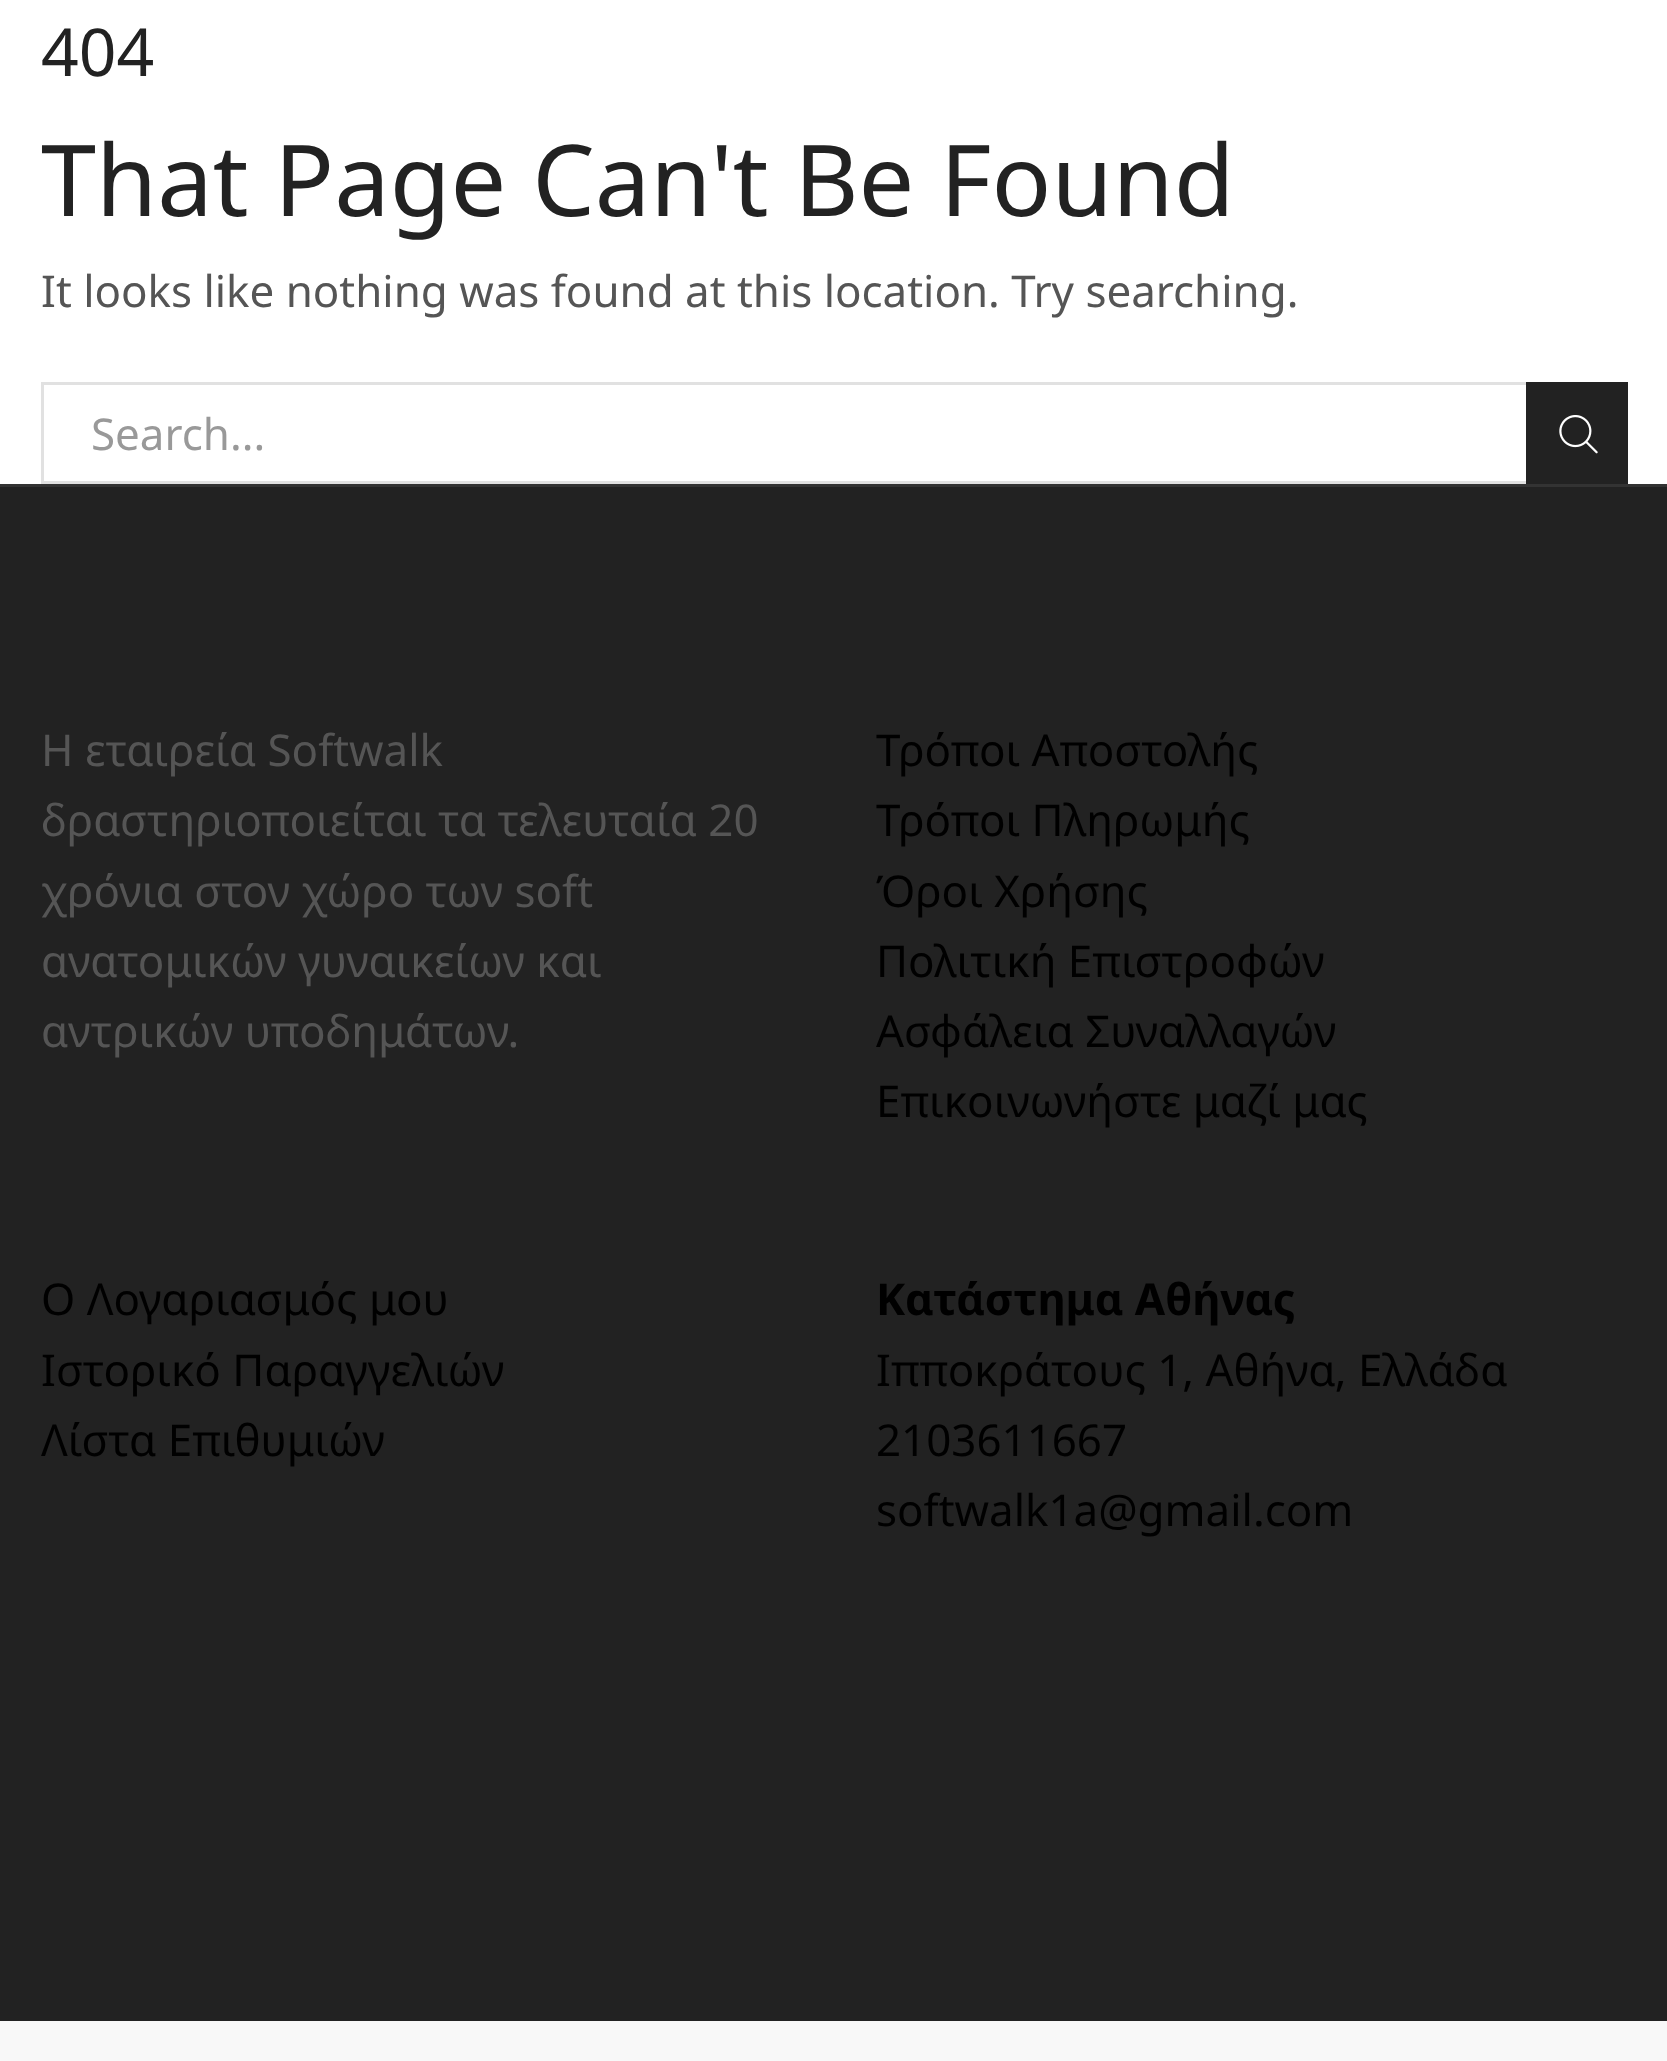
<!DOCTYPE html>
<meta charset="utf-8">
<style>body { margin: 0 } canvas { display: block }</style>
<canvas id="canvas" width="1667" height="2061"></canvas>
<script type="module">
  const canvas = document.getElementById("canvas");
  const g = canvas.getContext("2d");
  g.miterLimit = 4;
  g.fontKerning = "normal";
  function drawText(s, x, y, [font, color]) {
    g.font = font;
    g.fillStyle = color;
    g.fillText(s, x, y);
  }
  function fillBox(x, y, w, h, color) {
    g.fillStyle = color;
    g.fillRect(x, y, w, h);
  }
  async function drawPicture(src, x, y, w, h) {
    const img = new Image();
    img.src = src;
    await img.decode();
    g.drawImage(img, x, y, w, h);
  }

  const s1 = ["66px Noto Sans", "#222222"];
  const s2 = ["99px Noto Sans", "#222222"];
  const s3 = ["43.9px Noto Sans", "#555555"];
  const s4 = ["43.9px Noto Sans", "#999999"];
  const s5 = ["43.9px Noto Sans", "#000000"];
  const s6 = ["bold 43.9px Noto Sans", "#000000"];

  fillBox(0, 0, 1667, 2061, "#FFFFFF");
  drawText("404", 41, 76, s1);
  drawText("That Page Can't Be Found", 41, 216, s2);
  drawText("It looks like nothing was found at this location. Try searching.", 41, 307, s3);
  g.strokeStyle = "#E1E1E1";
  g.lineWidth = 3;
  g.strokeRect(42.5, 383.5, 1584, 99);
  drawText("Search...", 91, 450, s4);
  fillBox(1526, 382, 102, 102, "#222222");
  await drawPicture("pic1.png", 1559, 415, 39, 39);
  fillBox(0, 487, 1667, 1534, "#222222");
  fillBox(0, 484, 1667, 3, "#333333");
  drawText("Η εταιρεία Softwalk", 41, 766, s3);
  drawText("δραστηριοποιείται τα τελευταία 20", 41, 836, s3);
  drawText("χρόνια στον χώρο των soft", 41, 907, s3);
  drawText("ανατομικών γυναικείων και", 41, 977, s3);
  drawText("αντρικών υποδημάτων.", 41, 1047, s3);
  drawText("Τρόποι Αποστολής", 876, 766, s5);
  drawText("Τρόποι Πληρωμής", 876, 836, s5);
  drawText("Όροι Χρήσης", 876, 907, s5);
  drawText("Πολιτική Επιστροφών", 876, 977, s5);
  drawText("Ασφάλεια Συναλλαγών", 876, 1047, s5);
  drawText("Επικοινωνήστε μαζί μας", 876, 1117, s5);
  drawText("Ο Λογαριασμός μου", 41, 1315, s5);
  drawText("Ιστορικό Παραγγελιών", 41, 1386, s5);
  drawText("Λίστα Επιθυμιών", 41, 1456, s5);
  drawText("Κατάστημα Αθήνας", 876, 1315, s6);
  drawText("Ιπποκράτους 1, Αθήνα, Ελλάδα", 876, 1386, s5);
  drawText("2103611667", 876, 1456, s5);
  drawText("softwalk1a@gmail.com", 876, 1526, s5);
  fillBox(0, 2021, 1667, 40, "#F8F8F8");
</script>
